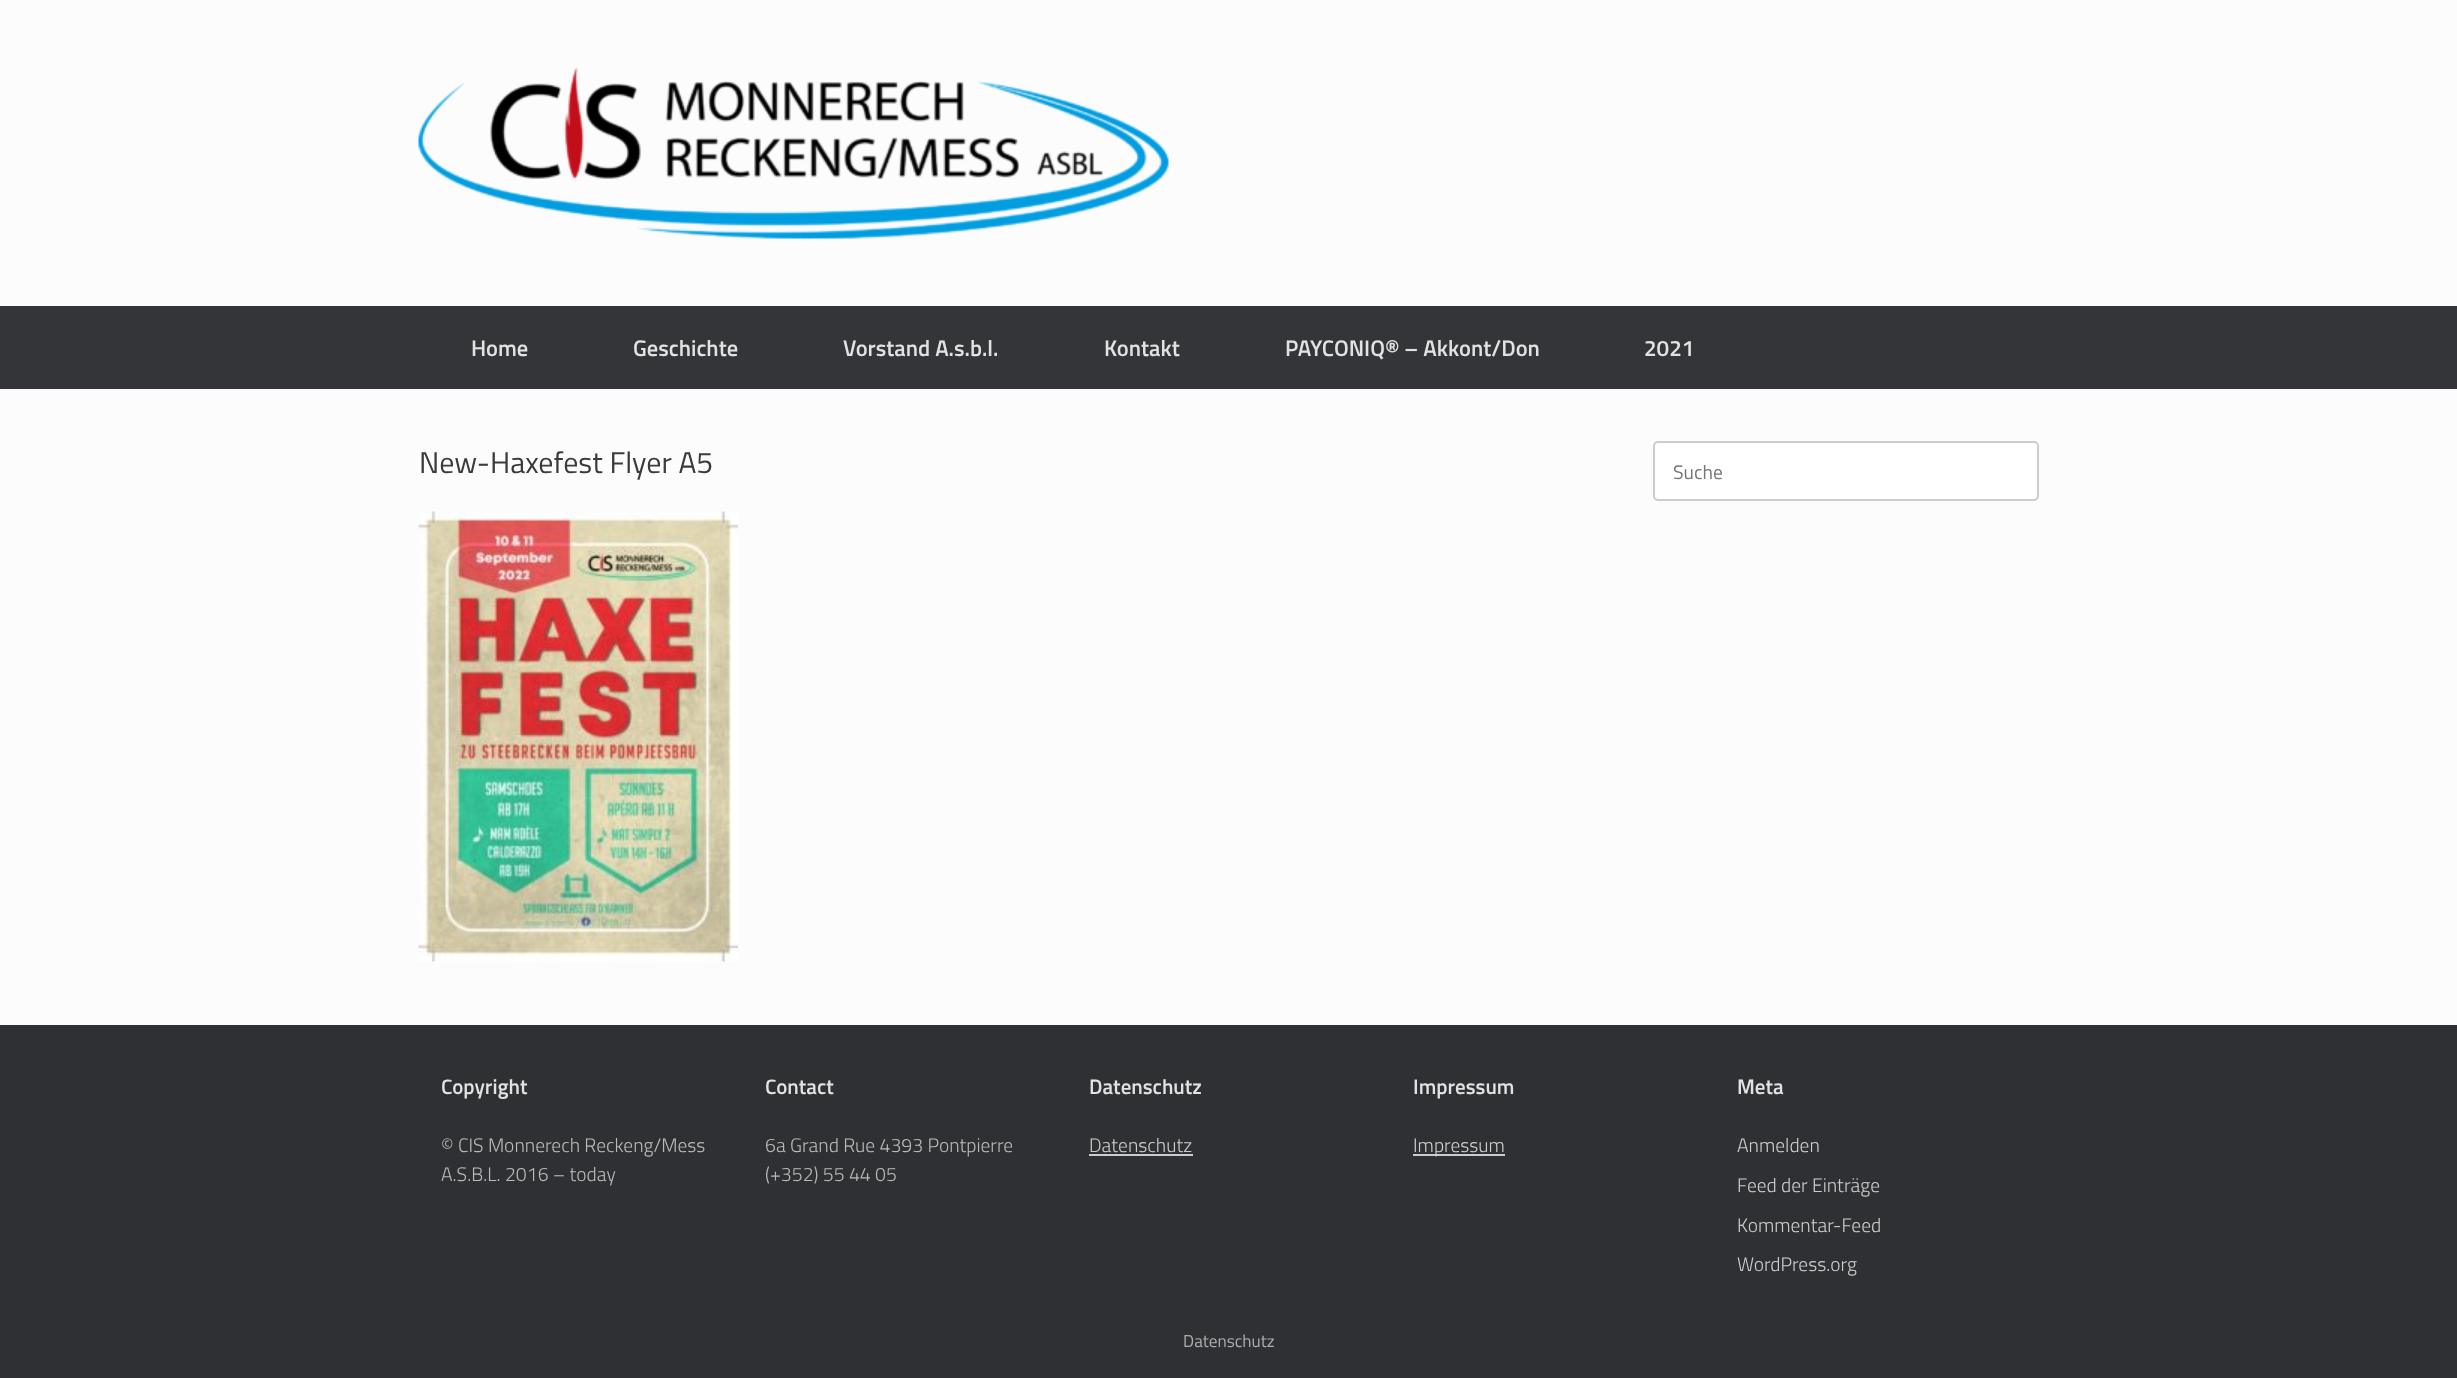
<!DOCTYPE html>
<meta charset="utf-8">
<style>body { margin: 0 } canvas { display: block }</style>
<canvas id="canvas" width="2457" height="1378"></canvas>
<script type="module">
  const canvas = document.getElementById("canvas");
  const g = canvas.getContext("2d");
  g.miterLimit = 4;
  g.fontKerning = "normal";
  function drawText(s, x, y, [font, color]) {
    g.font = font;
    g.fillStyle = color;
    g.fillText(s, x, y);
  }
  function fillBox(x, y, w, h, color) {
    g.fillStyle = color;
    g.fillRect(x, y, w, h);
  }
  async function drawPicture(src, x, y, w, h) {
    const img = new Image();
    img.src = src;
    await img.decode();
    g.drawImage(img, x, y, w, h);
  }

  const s1 = ["600 22.5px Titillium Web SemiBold", "#E2E2E2"];
  const s2 = ["30px Titillium Web", "#3B3B3B"];
  const s3 = ["19.5px Titillium Web", "#757575"];
  const s4 = ["600 21px Titillium Web SemiBold", "#E2E2E2"];
  const s5 = ["300 19.5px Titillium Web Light", "#B9B9B9"];
  const s6 = ["300 19.5px Titillium Web Light", "#CCCCCC"];
  const s7 = ["17.25px Titillium Web", "#ADADAD"];

  fillBox(0, 0, 2457, 1378, "#2F3033");
  fillBox(0, 0, 2457, 306, "#FCFCFC");
  await drawPicture("pic1.png", 418, 67, 751, 172);
  fillBox(0, 306, 2457, 83, "#343538");
  drawText("Home", 471, 356, s1);
  drawText("Geschichte", 633, 356, s1);
  drawText("Vorstand A.s.b.l.", 843, 356, s1);
  drawText("Kontakt", 1104, 356, s1);
  drawText("PAYCONIQ® – Akkont/Don", 1285, 356, s1);
  drawText("2021", 1644, 356, s1);
  fillBox(0, 389, 2457, 636, "#FCFCFC");
  drawText("New-Haxefest Flyer A5", 419, 473, s2);
  await drawPicture("pic2.png", 418, 511, 320, 451);
  g.fillStyle = "#FFFFFF";
  g.beginPath();
  g.roundRect(1654, 442, 384, 58, 4);
  g.fill();
  g.strokeStyle = "#CCCCCC";
  g.lineWidth = 2;
  g.stroke();
  drawText("Suche", 1673, 479, s3);
  drawText("Copyright", 441, 1094, s4);
  drawText("© CIS Monnerech Reckeng/Mess", 441, 1152, s5);
  drawText("A.S.B.L. 2016 – today", 441, 1181, s5);
  drawText("Contact", 765, 1094, s4);
  drawText("6a Grand Rue 4393 Pontpierre", 765, 1152, s5);
  drawText("(+352) 55 44 05", 765, 1181, s5);
  drawText("Datenschutz", 1089, 1094, s4);
  drawText("Datenschutz", 1089, 1152, s6);
  fillBox(1089, 1154, 104, 2, "#CCCCCC");
  drawText("Impressum", 1413, 1094, s4);
  fillBox(1413, 1154, 92, 2, "#CCCCCC");
  drawText("Impressum", 1413, 1152, s6);
  drawText("Meta", 1737, 1094, s4);
  drawText("Anmelden", 1737, 1152, s6);
  drawText("Feed der Einträge", 1737, 1192, s6);
  drawText("Kommentar-Feed", 1737, 1232, s6);
  drawText("WordPress.org", 1737, 1271, s6);
  drawText("Datenschutz", 1183, 1347, s7);
</script>
